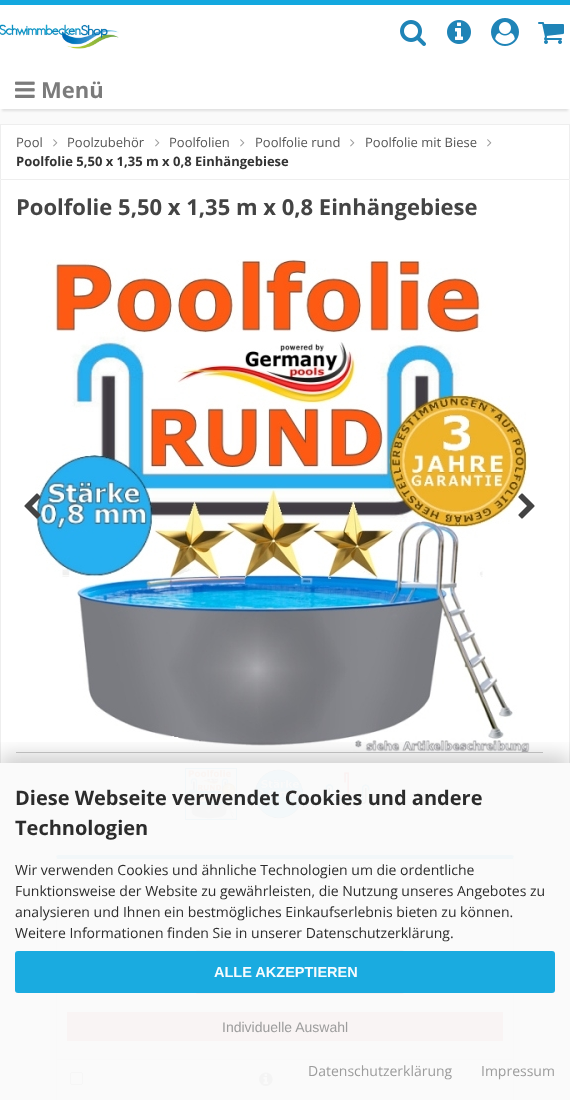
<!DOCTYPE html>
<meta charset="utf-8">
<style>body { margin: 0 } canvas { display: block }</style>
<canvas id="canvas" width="570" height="1100"></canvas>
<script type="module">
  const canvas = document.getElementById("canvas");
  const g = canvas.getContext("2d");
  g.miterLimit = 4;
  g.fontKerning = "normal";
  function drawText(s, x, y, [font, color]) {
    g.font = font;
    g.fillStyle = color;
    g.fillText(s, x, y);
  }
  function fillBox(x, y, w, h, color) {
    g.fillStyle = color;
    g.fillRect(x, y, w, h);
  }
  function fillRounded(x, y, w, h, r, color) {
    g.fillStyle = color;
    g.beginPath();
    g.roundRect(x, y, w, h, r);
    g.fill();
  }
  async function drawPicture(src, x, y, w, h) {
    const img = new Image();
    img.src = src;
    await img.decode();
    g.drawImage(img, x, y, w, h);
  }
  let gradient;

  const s1 = ["bold 22px Open Sans", "#7B7B7B"];
  const s2 = ["13px Open Sans", "#555555"];
  const s3 = ["bold 13px Open Sans", "#333333"];
  const s4 = ["bold 22px Open Sans", "#444444"];
  const s5 = ["bold 20px Open Sans", "#2C2C2C"];
  const s6 = ["14px Open Sans", "#2C2C2C"];
  const s7 = ["bold 14.5px Liberation Sans", "#F8FCFE"];
  const s8 = ["14px Liberation Sans", "#9C9C9C"];
  const s9 = ["14px Open Sans", "#9C9C9C"];

  fillBox(0, 0, 570, 1100, "#FAFAFA");
  fillBox(0, 0, 570, 5, "#13A8DF");
  g.fillStyle = "#E1E1E1";
  g.filter = "blur(1px)";
  g.beginPath();
  g.rect(2, 11, 566, 100);
  g.fill();
  g.filter = "none";
  fillBox(0, 5, 570, 104, "#FFFFFF");
  await drawPicture("pic1.png", 0, 24, 119, 25);
  await drawPicture("pic2.png", 400, 20, 26, 26);
  await drawPicture("pic3.png", 447, 20, 24, 24);
  await drawPicture("pic4.png", 491, 18, 28, 28);
  await drawPicture("pic5.png", 538, 22, 26, 22);
  await drawPicture("pic6.png", 15, 81, 20, 17);
  drawText("Menü", 41, 98, s1);
  fillBox(1, 125, 568, 54, "#FFFFFF");
  fillBox(0, 124, 570, 1, "#EEEEEE");
  fillBox(569, 124, 1, 55, "#EEEEEE");
  fillBox(0, 124, 1, 55, "#EEEEEE");
  drawText("Pool", 16, 147, s2);
  await drawPicture("pic7.png", 53, 139, 5, 8);
  drawText("Poolzubehör", 67, 147, s2);
  await drawPicture("pic7.png", 155, 139, 5, 8);
  drawText("Poolfolien", 169, 147, s2);
  await drawPicture("pic7.png", 240, 139, 5, 8);
  drawText("Poolfolie rund", 255, 147, s2);
  await drawPicture("pic7.png", 350, 139, 5, 8);
  drawText("Poolfolie mit Biese", 365, 147, s2);
  await drawPicture("pic7.png", 487, 139, 5, 8);
  drawText("Poolfolie 5,50 x 1,35 m x 0,8 Einhängebiese", 16, 166, s3);
  g.fillStyle = "#FFFFFF";
  g.beginPath();
  g.rect(0.5, 179.5, 569, 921);
  g.fill();
  g.strokeStyle = "#EEEEEE";
  g.stroke();
  drawText("Poolfolie 5,50 x 1,35 m x 0,8 Einhängebiese", 16, 215, s4);
  fillBox(16, 752, 527, 1, "#CCCCCC");
  await drawPicture("pic9.png", 35, 259, 495, 493);
  await drawPicture("pic8.png", 24, 493, 17, 26);
  await drawPicture("pic10.png", 518, 493, 17, 26);
  g.strokeStyle = "#13A8DF";
  g.strokeRect(185.5, 768.5, 51, 51);
  await drawPicture("pic11.png", 186, 769, 50, 50);
  await drawPicture("pic12.png", 254, 769, 50, 50);
  await drawPicture("pic13.png", 325, 772, 45, 33);
  g.fillStyle = "#13A8DF";
  g.beginPath();
  g.moveTo(59, 855);
  g.bezierCurveTo(58, 855, 57, 855, 56, 856);
  g.lineTo(57, 859);
  g.lineTo(513, 859);
  g.lineTo(514, 856);
  g.bezierCurveTo(513, 855, 512, 855, 511, 855);
  g.closePath();
  g.fill();
  g.fillStyle = "#CCCCCC";
  g.beginPath();
  g.moveTo(514, 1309);
  g.lineTo(514, 856);
  g.lineTo(513, 859);
  g.lineTo(513, 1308);
  g.lineTo(514, 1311);
  g.closePath();
  g.fill();
  g.beginPath();
  g.moveTo(56, 858);
  g.lineTo(56, 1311);
  g.lineTo(57, 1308);
  g.lineTo(57, 859);
  g.lineTo(56, 856);
  g.closePath();
  g.fill();
  fillBox(288, 917, 69, 1, "#999999");
  fillBox(166, 951, 29, 1, "#ECECEC");
  g.strokeStyle = "#CCCCCC";
  g.strokeRect(165.5, 950.5, 30, 43);
  gradient = g.createLinearGradient(301, 951, 301, 993);
  gradient.addColorStop(0, "#E01616");
  gradient.addColorStop(1, "#A50303");
  g.fillStyle = gradient;
  g.beginPath();
  g.moveTo(196, 951);
  g.lineTo(196, 993);
  g.lineTo(404, 993);
  g.bezierCurveTo(406, 991, 406, 953, 404, 951);
  g.closePath();
  g.fill();
  g.beginPath();
  g.roundRect(196.5, 950.5, 208, 43, [0, 2.5, 2.5, 0]);
  g.strokeStyle = "#BC0000";
  g.stroke();
  await drawPicture("pic14.png", 209, 965, 15, 14);
  await drawPicture("pic15.png", 387, 967, 6, 10);
  fillBox(67, 1012, 436, 29, "#DB4E4E");
  fillBox(57, 1059, 456, 1, "#CCCCCC");
  g.beginPath();
  g.roundRect(70.5, 1072.5, 12, 12, 1.5);
  g.strokeStyle = "#767676";
  g.stroke();
  await drawPicture("pic16.png", 259, 1072, 14, 15);
  g.save();
  g.beginPath();
  g.rect(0, 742, 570, 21);
  g.clip();
  g.fillStyle = "rgba(0, 0, 0, 0.19)";
  g.filter = "blur(10px)";
  g.beginPath();
  g.rect(0, 755, 570, 337);
  g.fill();
  g.filter = "none";
  g.restore();
  fillBox(0, 763, 570, 337, "rgba(250, 250, 250, 0.97)");
  drawText("Diese Webseite verwendet Cookies und andere", 15, 805, s5);
  drawText("Technologien", 15, 835, s5);
  drawText("Wir verwenden Cookies und ähnliche Technologien um die ordentliche", 15, 875, s6);
  drawText("Funktionsweise der Website zu gewährleisten, die Nutzung unseres Angebotes zu", 15, 896, s6);
  drawText("analysieren und Ihnen ein bestmögliches Einkaufserlebnis bieten zu können.", 15, 917, s6);
  drawText("Weitere Informationen finden Sie in unserer Datenschutzerklärung.", 15, 938, s6);
  fillRounded(15, 951, 540, 42, 3, "rgba(19, 168, 223, 0.97)");
  drawText("ALLE AKZEPTIEREN", 214, 977, s7);
  drawText("Individuelle Auswahl", 222, 1032, s8);
  drawText("Datenschutzerklärung", 308, 1076, s9);
  drawText("Impressum", 481, 1076, s9);
</script>
